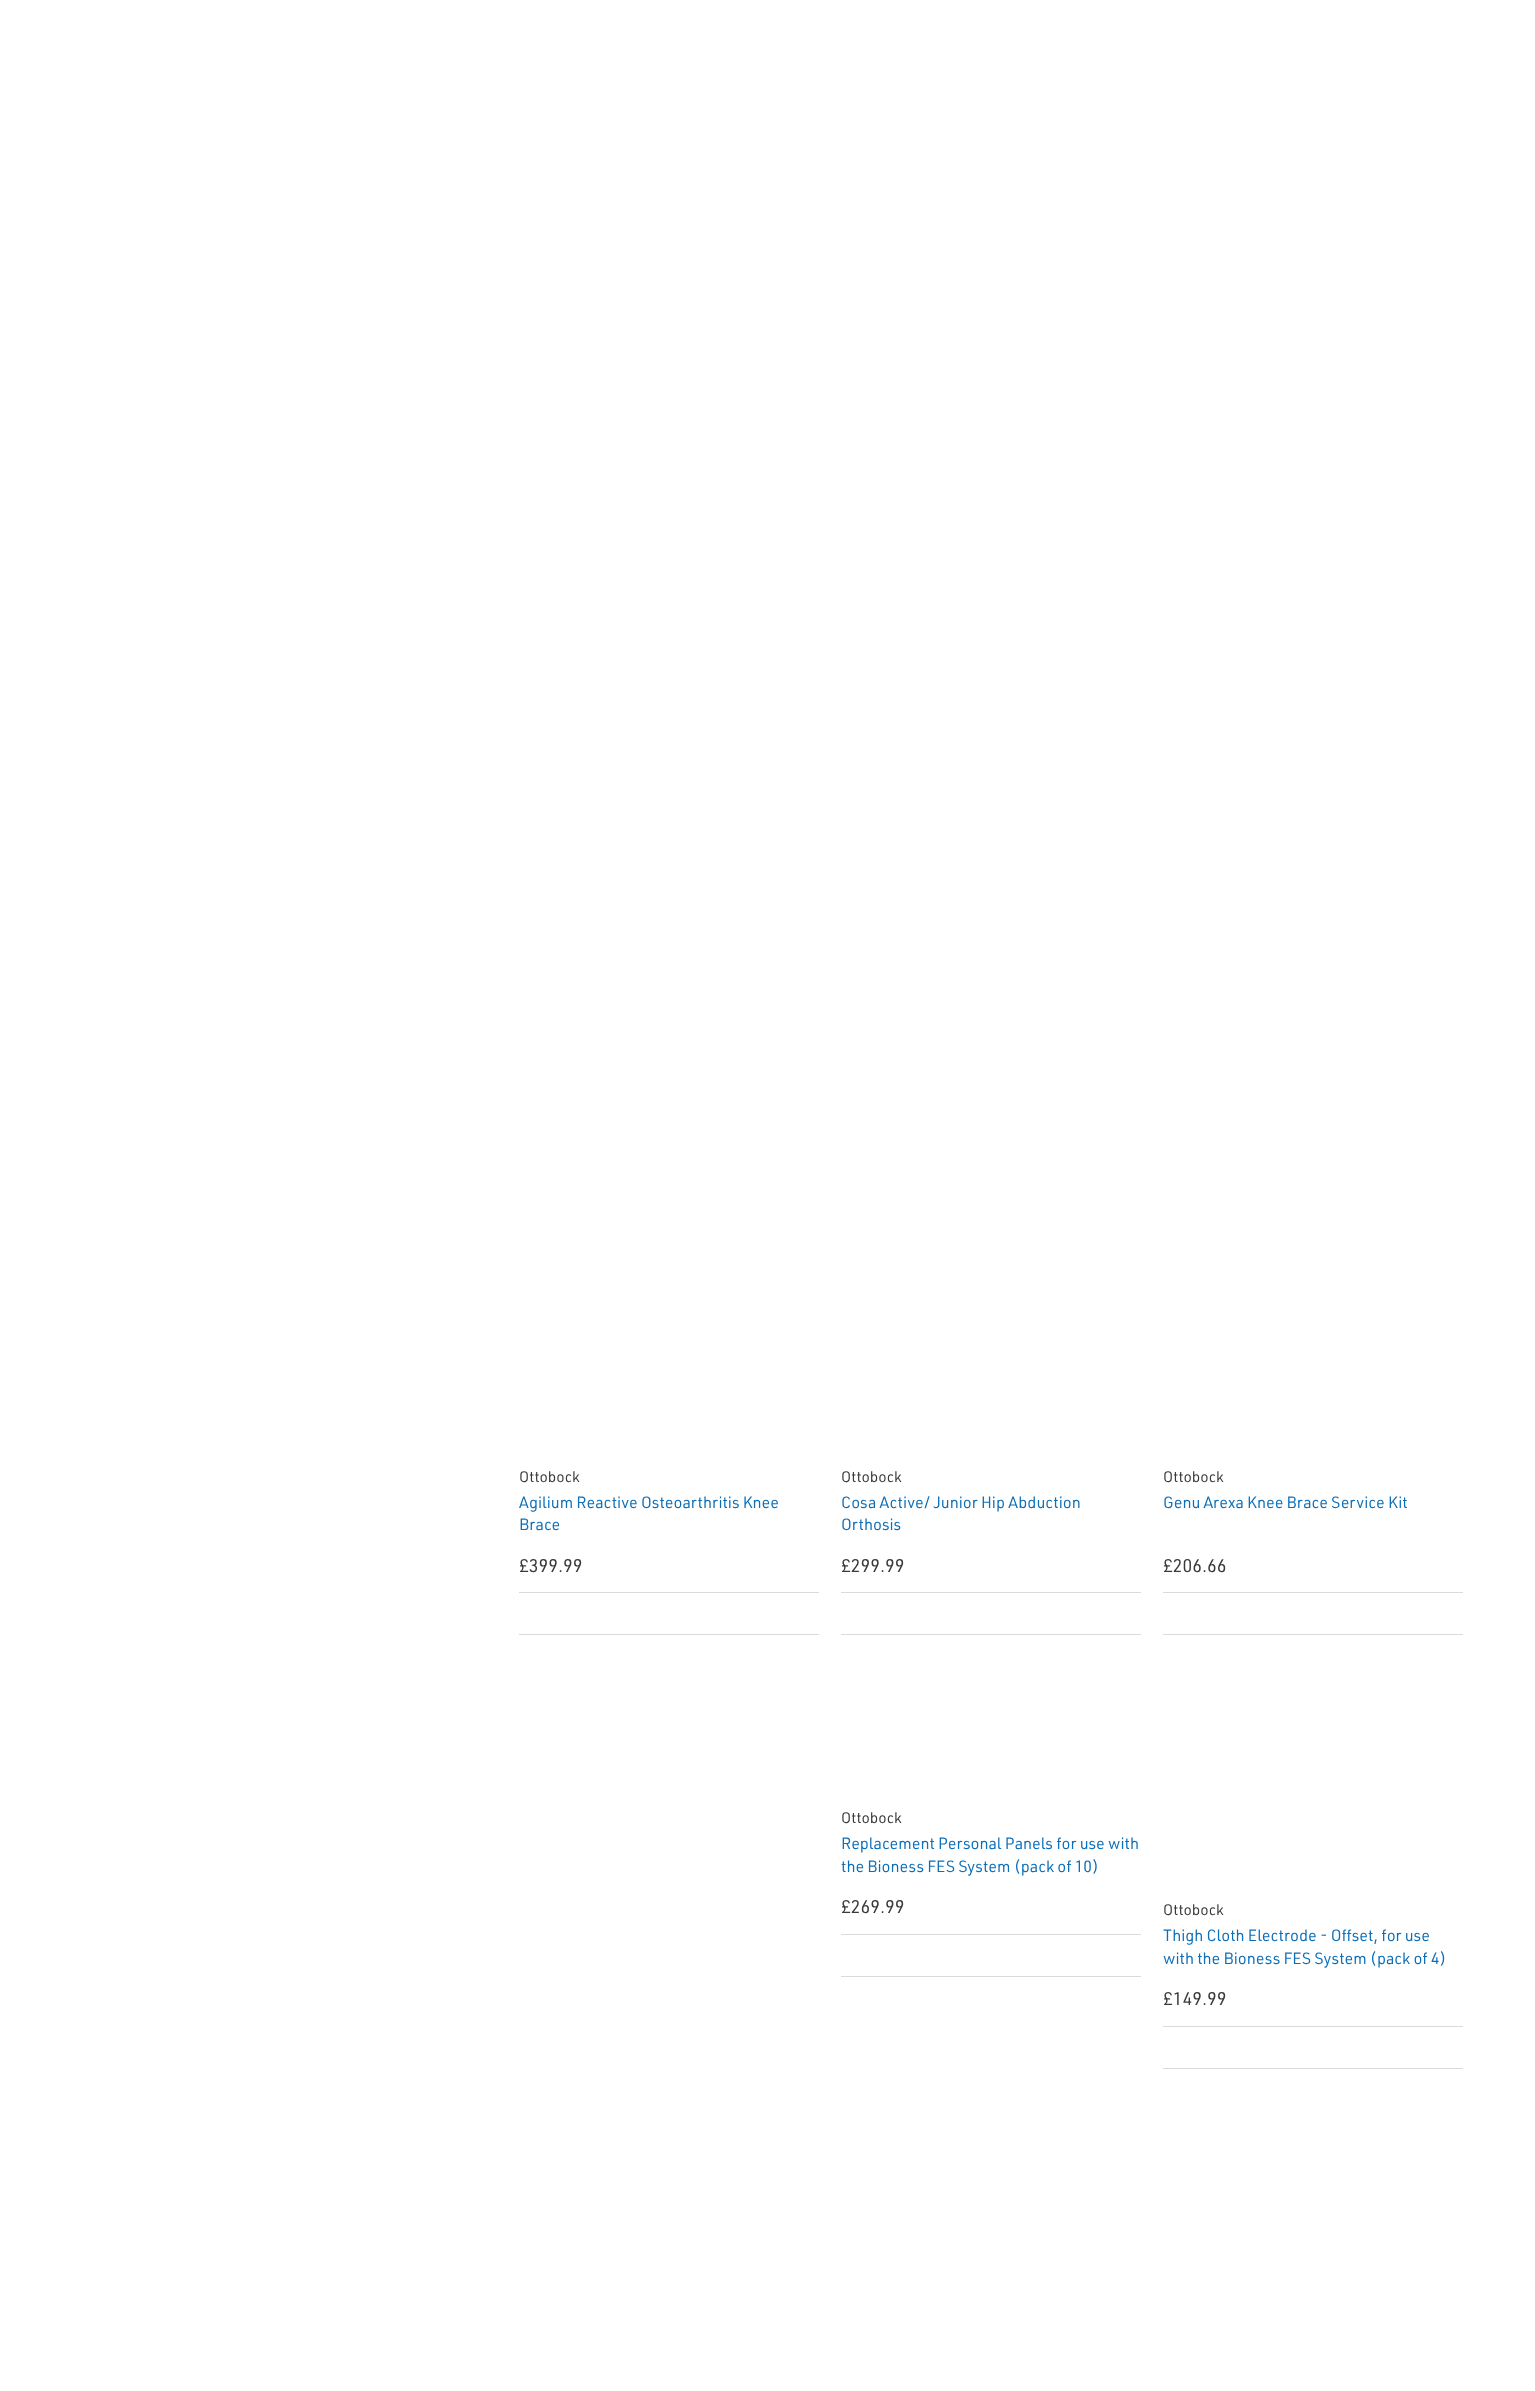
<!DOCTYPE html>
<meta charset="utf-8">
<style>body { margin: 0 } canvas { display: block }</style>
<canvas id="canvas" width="1535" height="2391"></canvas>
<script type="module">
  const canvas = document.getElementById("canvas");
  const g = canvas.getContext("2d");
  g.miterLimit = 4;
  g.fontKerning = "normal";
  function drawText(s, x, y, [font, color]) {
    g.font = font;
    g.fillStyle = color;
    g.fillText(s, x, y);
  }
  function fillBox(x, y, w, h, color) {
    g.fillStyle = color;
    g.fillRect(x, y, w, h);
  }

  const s1 = ["15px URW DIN", "#3A3A3A"];
  const s2 = ["16px URW DIN", "#0D6FB8"];
  const s3 = ["18px URW DIN", "#3A3A3A"];

  fillBox(0, 0, 1535, 2391, "#FFFFFF");
  drawText("Ottobock", 519, 1482, s1);
  drawText("Agilium Reactive Osteoarthritis Knee", 519, 1508, s2);
  drawText("Brace", 519, 1530, s2);
  fillBox(519, 1592, 300, 1, "#DADADA");
  drawText("£399.99", 519, 1572, s3);
  fillBox(519, 1634, 300, 1, "#DADADA");
  drawText("Ottobock", 841, 1482, s1);
  drawText("Cosa Active/ Junior Hip Abduction", 841, 1508, s2);
  drawText("Orthosis", 841, 1530, s2);
  fillBox(841, 1592, 300, 1, "#DADADA");
  drawText("£299.99", 841, 1572, s3);
  fillBox(841, 1634, 300, 1, "#DADADA");
  drawText("Ottobock", 1163, 1482, s1);
  drawText("Genu Arexa Knee Brace Service Kit", 1163, 1508, s2);
  fillBox(1163, 1592, 300, 1, "#DADADA");
  drawText("£206.66", 1163, 1572, s3);
  fillBox(1163, 1634, 300, 1, "#DADADA");
  drawText("Ottobock", 841, 1823, s1);
  drawText("Replacement Personal Panels for use with", 841, 1849, s2);
  drawText("the Bioness FES System (pack of 10)", 841, 1872, s2);
  fillBox(841, 1934, 300, 1, "#DADADA");
  drawText("£269.99", 841, 1913, s3);
  fillBox(841, 1976, 300, 1, "#DADADA");
  drawText("Ottobock", 1163, 1915, s1);
  drawText("Thigh Cloth Electrode - Offset, for use", 1163, 1941, s2);
  drawText("with the Bioness FES System (pack of 4)", 1163, 1964, s2);
  fillBox(1163, 2026, 300, 1, "#DADADA");
  drawText("£149.99", 1163, 2005, s3);
  fillBox(1163, 2068, 300, 1, "#DADADA");
</script>
